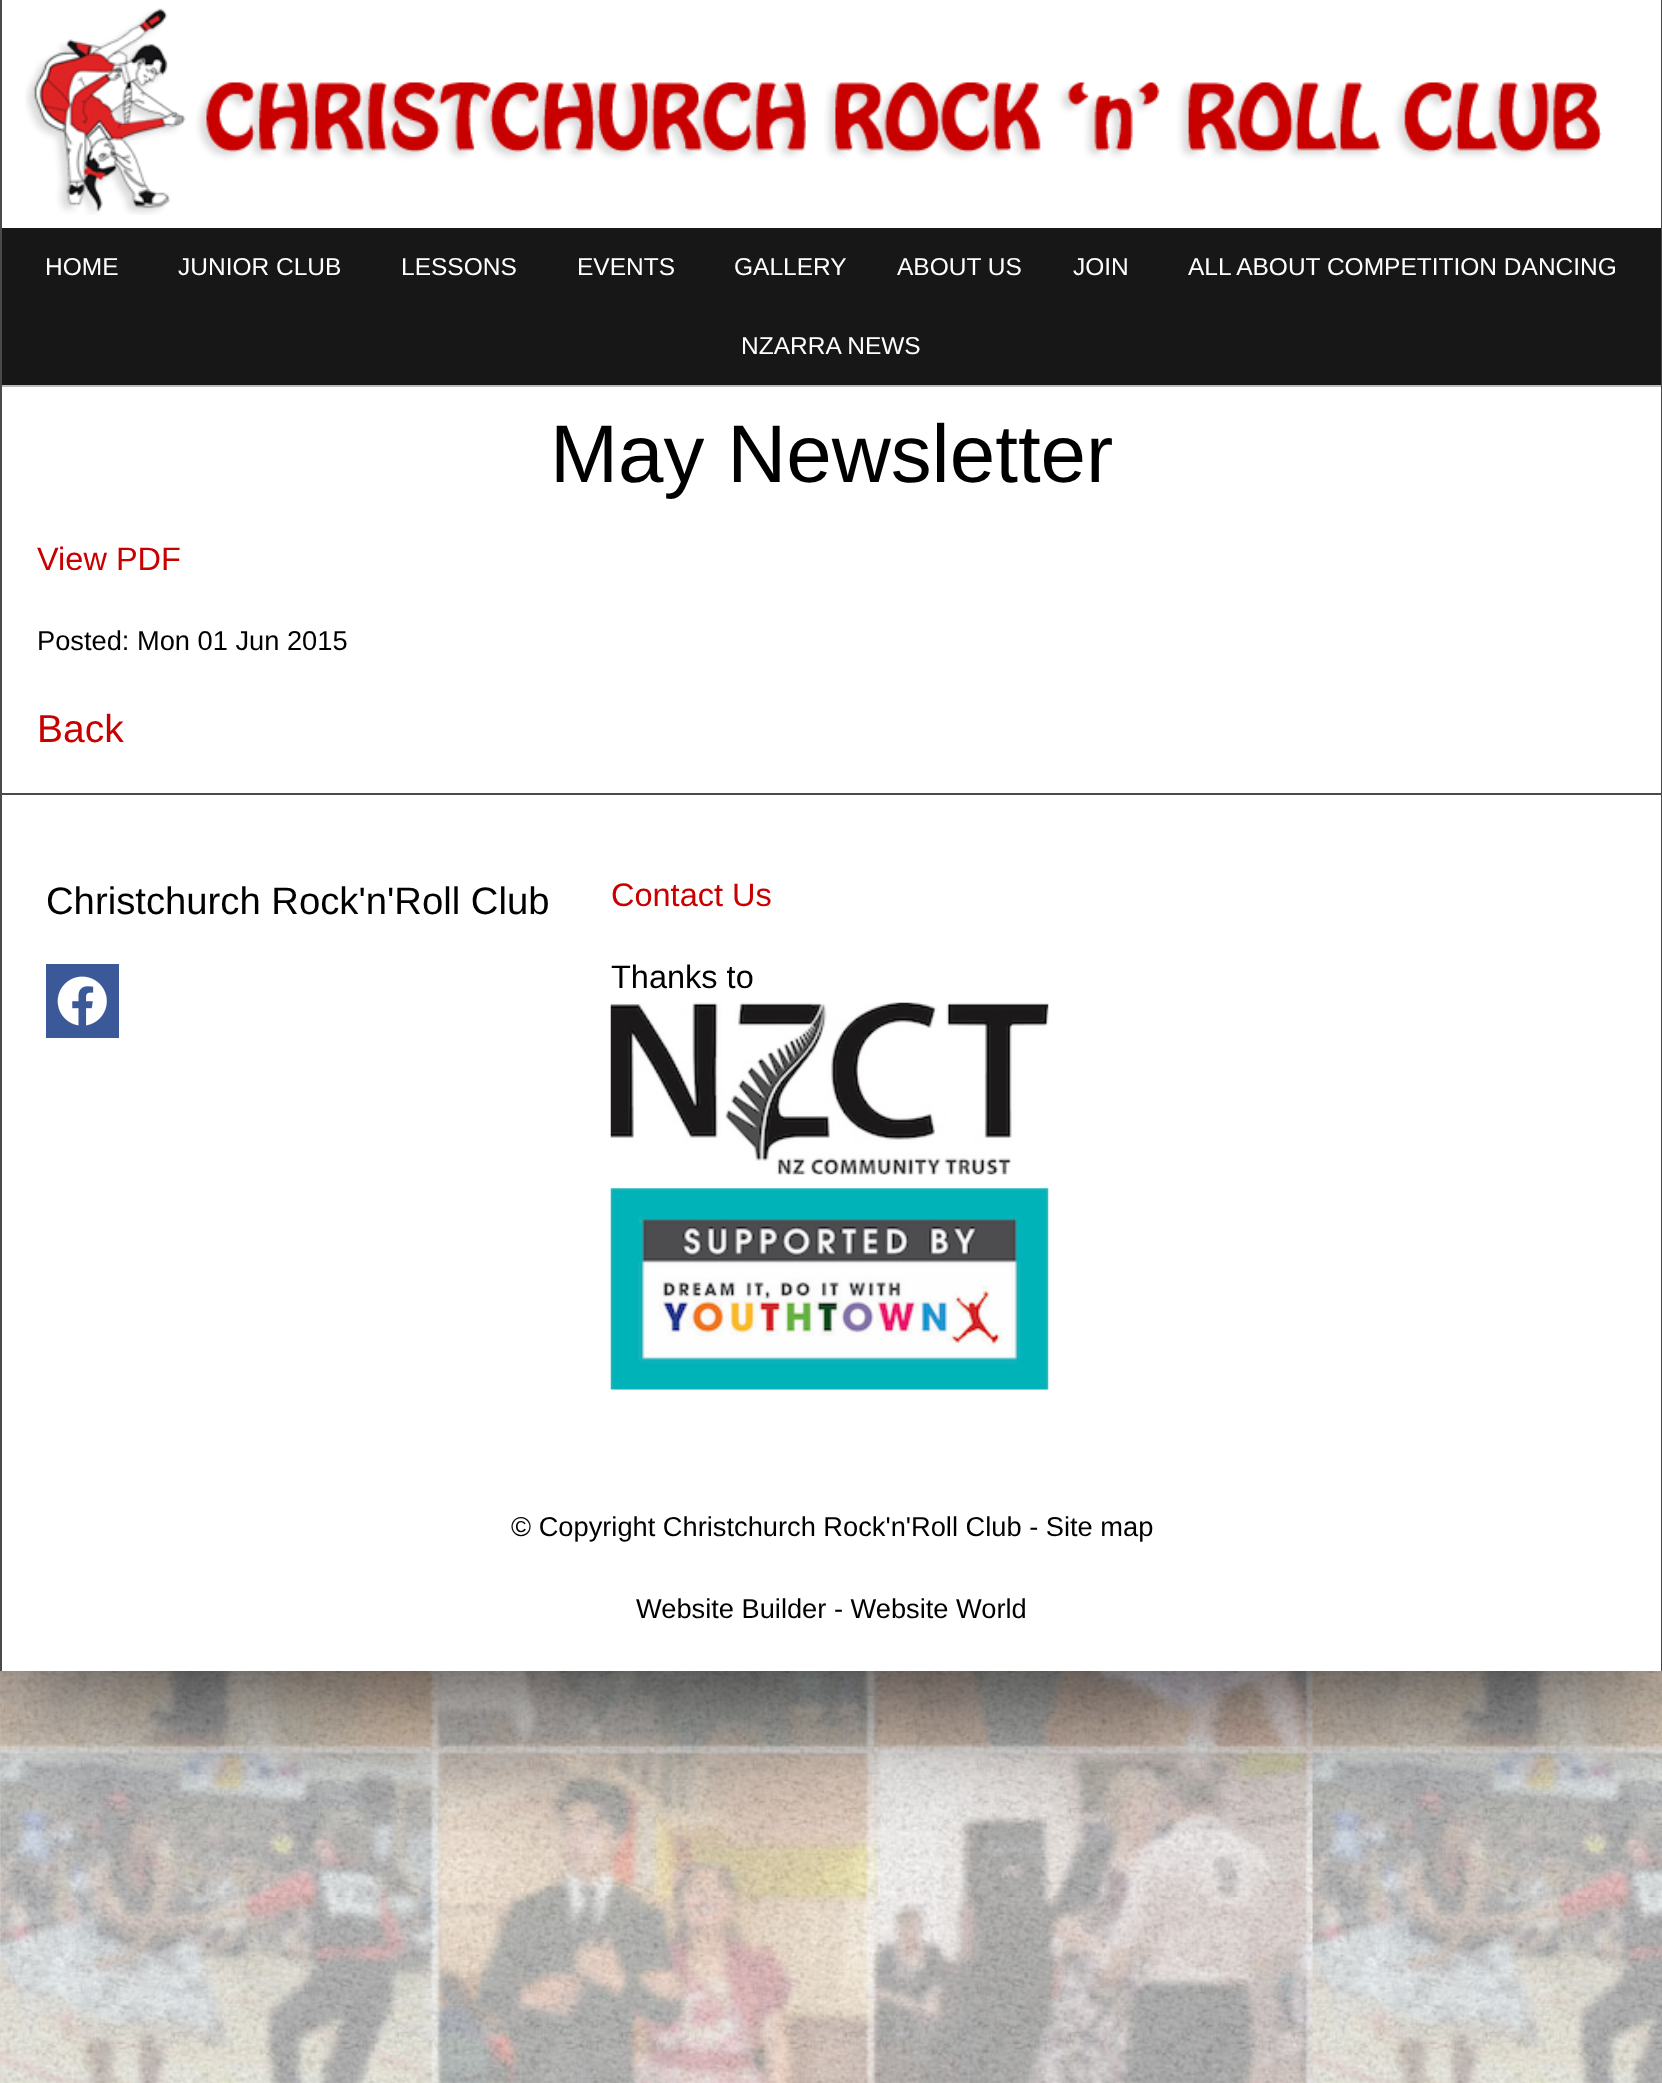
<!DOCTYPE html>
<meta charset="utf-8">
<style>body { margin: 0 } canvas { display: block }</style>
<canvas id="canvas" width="1662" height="2083"></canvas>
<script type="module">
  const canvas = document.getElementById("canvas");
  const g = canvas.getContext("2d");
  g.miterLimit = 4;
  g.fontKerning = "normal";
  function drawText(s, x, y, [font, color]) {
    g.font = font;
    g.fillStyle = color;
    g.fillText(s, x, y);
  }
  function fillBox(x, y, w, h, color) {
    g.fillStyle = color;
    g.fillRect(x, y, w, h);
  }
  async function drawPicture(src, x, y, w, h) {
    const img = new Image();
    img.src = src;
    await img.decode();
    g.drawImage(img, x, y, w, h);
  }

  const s1 = ["24.5px Liberation Sans", "#FFFFFF"];
  const s2 = ["81.75px Liberation Sans", "#000000"];
  const s3 = ["32.5px Liberation Sans", "#C80000"];
  const s4 = ["27.25px Liberation Sans", "#000000"];
  const s5 = ["39px Liberation Sans", "#C80000"];
  const s6 = ["38.25px Liberation Sans", "#000000"];
  const s7 = ["32.5px Liberation Sans", "#000000"];

  fillBox(0, 0, 1662, 2083, "#FFFFFF");
  await drawPicture("pic1.png", 0, 1671, 1662, 412);
  g.fillStyle = "rgba(0, 0, 0, 0.95)";
  g.filter = "blur(81.5px)";
  g.beginPath();
  g.rect(0, 0, 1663, 1671);
  g.fill();
  g.filter = "none";
  fillBox(2, 0, 1659, 1671, "#FFFFFF");
  fillBox(1661, 0, 1, 1671, "#4A4A4A");
  fillBox(0, 0, 2, 1671, "#4A4A4A");
  await drawPicture("pic2.png", 25, 8, 1577, 207);
  fillBox(2, 228, 1659, 157, "#171717");
  drawText("HOME", 45, 275, s1);
  drawText("JUNIOR CLUB", 178, 275, s1);
  drawText("LESSONS", 401, 275, s1);
  drawText("EVENTS", 577, 275, s1);
  drawText("GALLERY", 734, 275, s1);
  drawText("ABOUT US", 897, 275, s1);
  drawText("JOIN", 1073, 275, s1);
  drawText("ALL ABOUT COMPETITION DANCING", 1188, 275, s1);
  drawText("NZARRA NEWS", 741, 354, s1);
  fillBox(2, 385, 1659, 2, "#BCBCBC");
  drawText("May Newsletter", 550, 482, s2);
  drawText("View PDF", 37, 570, s3);
  drawText("Posted: Mon 01 Jun 2015", 37, 650, s4);
  drawText("Back", 37, 742, s5);
  fillBox(2, 793, 1659, 2, "#4A4A4A");
  drawText("Christchurch Rock'n'Roll Club", 46, 914, s6);
  fillBox(46, 964, 73, 74, "#3B5998");
  await drawPicture("pic3.png", 57, 976, 50, 50);
  drawText("Contact Us", 611, 906, s3);
  drawText("Thanks to", 611, 988, s7);
  await drawPicture("pic4.png", 610, 1002, 439, 173);
  await drawPicture("pic5.png", 610, 1188, 439, 202);
  drawText("© Copyright Christchurch Rock'n'Roll Club - Site map", 511, 1536, s4);
  drawText("Website Builder - Website World", 636, 1618, s4);
</script>
